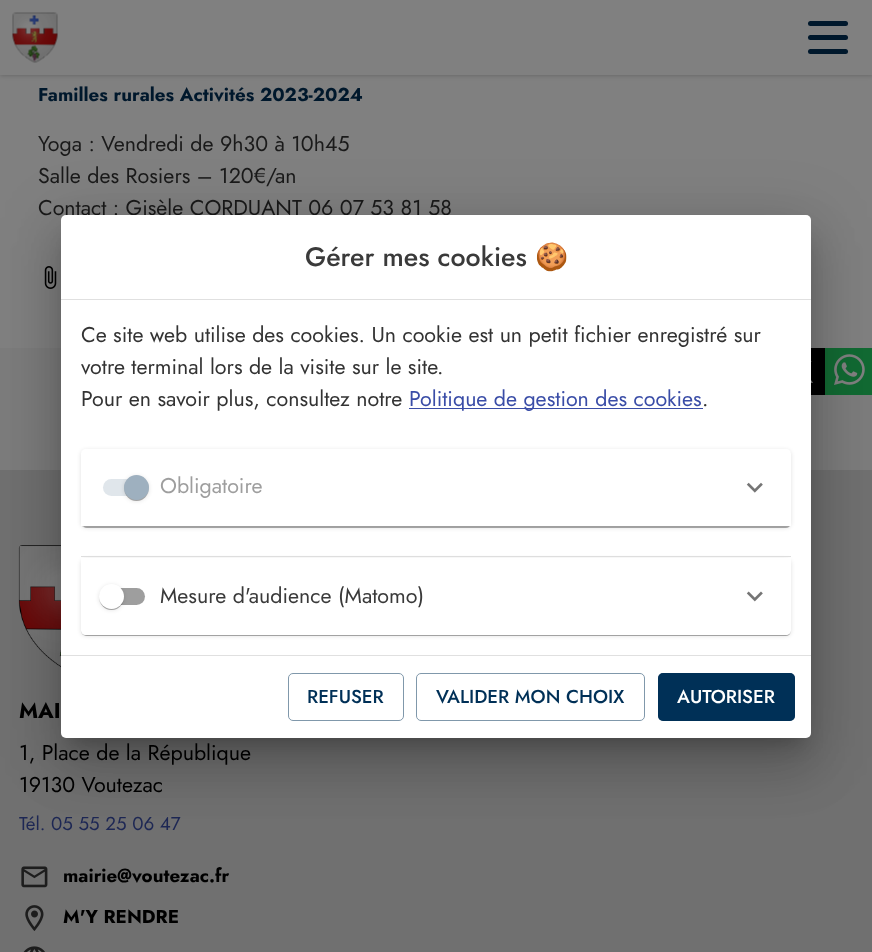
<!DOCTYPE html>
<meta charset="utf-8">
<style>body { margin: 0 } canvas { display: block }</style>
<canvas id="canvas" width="872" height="952"></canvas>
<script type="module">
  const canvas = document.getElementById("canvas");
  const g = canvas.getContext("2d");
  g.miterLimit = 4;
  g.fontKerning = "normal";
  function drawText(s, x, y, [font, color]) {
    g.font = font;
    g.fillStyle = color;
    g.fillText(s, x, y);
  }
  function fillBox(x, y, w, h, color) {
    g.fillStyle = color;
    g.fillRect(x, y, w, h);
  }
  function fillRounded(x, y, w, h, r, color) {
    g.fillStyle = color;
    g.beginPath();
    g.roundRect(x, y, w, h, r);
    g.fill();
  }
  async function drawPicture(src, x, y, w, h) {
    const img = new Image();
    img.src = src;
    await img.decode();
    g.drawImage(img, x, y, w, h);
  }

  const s1 = ["bold 18.75px Jost", "#00182C"];
  const s2 = ["21.4px Jost", "#1A1A1A"];
  const s3 = ["bold 21.4px Jost", "#000000"];
  const s4 = ["21.4px Jost", "#000000"];
  const s5 = ["18.75px Jost", "#1D2754"];
  const s6 = ["bold 18.75px Jost", "#000000"];
  const s7 = ["500 26.75px Jost", "#3A3A3A"];
  const s8 = ["26.75px Noto Color Emoji", "#3A3A3A"];
  const s9 = ["21.4px Jost", "#333333"];
  const s10 = ["21.4px Jost", "#3A4DA7"];
  const s11 = ["21.4px Jost", "#9E9E9E"];
  const s12 = ["21.4px Jost", "#3A3A3A"];
  const s13 = ["500 18.75px Jost", "#003057"];
  const s14 = ["500 18.75px Jost", "#FFFFFF"];

  fillBox(0, 0, 872, 952, "#7C7C7C");
  fillBox(0, 75, 872, 273, "#808080");
  g.fillStyle = "rgba(0, 0, 0, 0.25)";
  g.filter = "blur(2.5px)";
  g.beginPath();
  g.rect(0, 0, 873, 75);
  g.fill();
  g.filter = "none";
  fillBox(0, 0, 872, 75, "#808080");
  await drawPicture("pic1.png", 12, 12, 46, 51);
  fillRounded(808, 21, 40, 5, 2.5, "#00182C");
  fillRounded(808, 35, 40, 5, 2.5, "#00182C");
  fillRounded(808, 49, 40, 5, 2.5, "#00182C");
  drawText("Familles rurales Activités 2023-2024", 38, 101, s1);
  drawText("Yoga : Vendredi de 9h30 à 10h45", 38, 151, s2);
  drawText("Salle des Rosiers – 120€/an", 38, 183, s2);
  drawText("Contact : Gisèle CORDUANT 06 07 53 81 58", 38, 215, s2);
  await drawPicture("pic2.png", 44, 266, 13, 23);
  await drawPicture("pic3.png", 811, 348, 14, 47);
  await drawPicture("pic4.png", 825, 348, 47, 47);
  fillBox(0, 470, 872, 482, "#707070");
  await drawPicture("pic5.png", 18, 545, 43, 123);
  drawText("MAI", 19, 718, s3);
  drawText("1, Place de la République", 19, 760, s4);
  drawText("19130 Voutezac", 19, 792, s4);
  drawText("Tél. 05 55 25 06 47", 19, 830, s5);
  await drawPicture("pic6.png", 21, 866, 27, 22);
  drawText("mairie@voutezac.fr", 63, 882, s6);
  await drawPicture("pic7.png", 25, 905, 19, 26);
  drawText("M'Y RENDRE", 63, 923, s6);
  await drawPicture("pic8.png", 23, 946, 22, 6);
  g.fillStyle = "rgba(0, 0, 0, 0.12)";
  g.filter = "blur(29px)";
  g.beginPath();
  g.roundRect(51, 216, 770, 543, 15);
  g.fill();
  g.filter = "none";
  g.fillStyle = "rgba(0, 0, 0, 0.14)";
  g.filter = "blur(24px)";
  g.beginPath();
  g.roundRect(58, 241, 757, 530, 9);
  g.fill();
  g.filter = "none";
  g.fillStyle = "rgba(0, 0, 0, 0.2)";
  g.filter = "blur(9.5px)";
  g.beginPath();
  g.rect(70, 238, 733, 505);
  g.fill();
  g.filter = "none";
  fillRounded(61, 215, 750, 523, 5, "#FFFFFF");
  drawText("Gérer mes cookies", 305, 266, s7);
  drawText("🍪", 535, 266, s8);
  fillBox(61, 299, 750, 1, "#E0E0E0");
  fillBox(61, 655, 750, 1, "#E0E0E0");
  drawText("Ce site web utilise des cookies. Un cookie est un petit fichier enregistré sur", 81, 342, s9);
  drawText("votre terminal lors de la visite sur le site.", 81, 374, s9);
  drawText("Pour en savoir plus, consultez notre", 81, 406, s9);
  fillBox(409, 408, 294, 1, "#3A4DA7");
  drawText("Politique de gestion des cookies", 409, 406, s10);
  drawText(".", 702, 406, s9);
  g.save();
  g.beginPath();
  g.moveTo(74, 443);
  g.lineTo(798, 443);
  g.lineTo(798, 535);
  g.lineTo(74, 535);
  g.closePath();
  g.moveTo(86, 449);
  g.lineTo(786, 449);
  g.bezierCurveTo(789, 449, 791, 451, 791, 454);
  g.lineTo(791, 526);
  g.lineTo(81, 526);
  g.lineTo(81, 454);
  g.bezierCurveTo(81, 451, 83, 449, 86, 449);
  g.closePath();
  g.clip("evenodd");
  g.fillStyle = "rgba(0, 0, 0, 0.12)";
  g.filter = "blur(2px)";
  g.beginPath();
  g.roundRect(81, 450, 710, 78, 5);
  g.fill();
  g.filter = "none";
  g.restore();
  g.save();
  g.beginPath();
  g.moveTo(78, 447);
  g.lineTo(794, 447);
  g.lineTo(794, 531);
  g.lineTo(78, 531);
  g.closePath();
  g.moveTo(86, 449);
  g.lineTo(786, 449);
  g.bezierCurveTo(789, 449, 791, 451, 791, 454);
  g.lineTo(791, 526);
  g.lineTo(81, 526);
  g.lineTo(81, 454);
  g.bezierCurveTo(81, 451, 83, 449, 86, 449);
  g.closePath();
  g.clip("evenodd");
  g.fillStyle = "rgba(0, 0, 0, 0.14)";
  g.filter = "blur(0.5px)";
  g.beginPath();
  g.roundRect(81, 450, 710, 78, 5);
  g.fill();
  g.filter = "none";
  g.restore();
  g.save();
  g.beginPath();
  g.rect(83, 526, 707, 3);
  g.clip();
  g.fillStyle = "rgba(0, 0, 0, 0.2)";
  g.filter = "blur(0.5px)";
  g.beginPath();
  g.roundRect(83, 453, 707, 75, 4);
  g.fill();
  g.filter = "none";
  g.restore();
  fillRounded(103, 479, 42, 17, 8.5, "#E0E6EB");
  g.fillStyle = "rgba(0, 0, 0, 0.12)";
  g.filter = "blur(2px)";
  g.beginPath();
  g.roundRect(124, 476, 25, 25, 12.5);
  g.fill();
  g.filter = "none";
  g.fillStyle = "rgba(0, 0, 0, 0.14)";
  g.filter = "blur(0.5px)";
  g.beginPath();
  g.roundRect(124, 476, 25, 25, 12.5);
  g.fill();
  g.filter = "none";
  g.fillStyle = "rgba(0, 0, 0, 0.2)";
  g.filter = "blur(0.5px)";
  g.beginPath();
  g.roundRect(125, 479, 23, 22, 11);
  g.fill();
  g.filter = "none";
  g.fillStyle = "#9EB0BF";
  g.beginPath();
  g.arc(136.5, 487.5, 12.5, 0, Math.PI * 2);
  g.fill();
  drawText("Obligatoire", 160, 493, s11);
  await drawPicture("pic9.png", 746, 482, 17, 11);
  g.save();
  g.beginPath();
  g.moveTo(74, 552);
  g.lineTo(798, 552);
  g.lineTo(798, 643);
  g.lineTo(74, 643);
  g.closePath();
  g.moveTo(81, 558);
  g.lineTo(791, 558);
  g.lineTo(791, 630);
  g.bezierCurveTo(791, 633, 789, 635, 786, 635);
  g.lineTo(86, 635);
  g.bezierCurveTo(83, 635, 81, 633, 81, 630);
  g.closePath();
  g.clip("evenodd");
  g.fillStyle = "rgba(0, 0, 0, 0.12)";
  g.filter = "blur(2px)";
  g.beginPath();
  g.roundRect(81, 559, 710, 77, 5);
  g.fill();
  g.filter = "none";
  g.restore();
  g.save();
  g.beginPath();
  g.moveTo(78, 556);
  g.lineTo(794, 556);
  g.lineTo(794, 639);
  g.lineTo(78, 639);
  g.closePath();
  g.moveTo(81, 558);
  g.lineTo(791, 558);
  g.lineTo(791, 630);
  g.bezierCurveTo(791, 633, 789, 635, 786, 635);
  g.lineTo(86, 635);
  g.bezierCurveTo(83, 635, 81, 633, 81, 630);
  g.closePath();
  g.clip("evenodd");
  g.fillStyle = "rgba(0, 0, 0, 0.14)";
  g.filter = "blur(0.5px)";
  g.beginPath();
  g.roundRect(81, 559, 710, 77, 5);
  g.fill();
  g.filter = "none";
  g.restore();
  g.save();
  g.beginPath();
  g.moveTo(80, 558);
  g.lineTo(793, 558);
  g.lineTo(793, 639);
  g.lineTo(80, 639);
  g.closePath();
  g.moveTo(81, 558);
  g.lineTo(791, 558);
  g.lineTo(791, 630);
  g.bezierCurveTo(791, 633, 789, 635, 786, 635);
  g.lineTo(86, 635);
  g.bezierCurveTo(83, 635, 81, 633, 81, 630);
  g.closePath();
  g.clip("evenodd");
  g.fillStyle = "rgba(0, 0, 0, 0.2)";
  g.filter = "blur(0.5px)";
  g.beginPath();
  g.roundRect(83, 561, 707, 75, 4);
  g.fill();
  g.filter = "none";
  g.restore();
  fillBox(81, 556, 710, 1, "#DEDEDE");
  fillRounded(103, 588, 42, 17, 8.5, "#9E9E9E");
  g.fillStyle = "rgba(0, 0, 0, 0.12)";
  g.filter = "blur(2px)";
  g.beginPath();
  g.roundRect(99, 585, 25, 25, 12.5);
  g.fill();
  g.filter = "none";
  g.fillStyle = "rgba(0, 0, 0, 0.14)";
  g.filter = "blur(0.5px)";
  g.beginPath();
  g.roundRect(99, 585, 25, 25, 12.5);
  g.fill();
  g.filter = "none";
  g.fillStyle = "rgba(0, 0, 0, 0.2)";
  g.filter = "blur(0.5px)";
  g.beginPath();
  g.roundRect(100, 588, 23, 22, 11);
  g.fill();
  g.filter = "none";
  g.fillStyle = "#FFFFFF";
  g.beginPath();
  g.arc(111.5, 596.5, 12.5, 0, Math.PI * 2);
  g.fill();
  drawText("Mesure d'audience (Matomo)", 160, 603, s12);
  await drawPicture("pic10.png", 746, 591, 17, 11);
  g.beginPath();
  g.roundRect(288.5, 673.5, 115, 47, 4.5);
  g.strokeStyle = "#8098AB";
  g.stroke();
  drawText("REFUSER", 307, 703, s13);
  g.beginPath();
  g.roundRect(416.5, 673.5, 228, 47, 4.5);
  g.stroke();
  drawText("VALIDER MON CHOIX", 436, 703, s13);
  fillRounded(658, 673, 137, 48, 5, "#003057");
  g.beginPath();
  g.roundRect(658.5, 673.5, 136, 47, 4.5);
  g.strokeStyle = "rgba(0, 48, 87, 0.5)";
  g.stroke();
  drawText("AUTORISER", 677, 703, s14);
</script>
